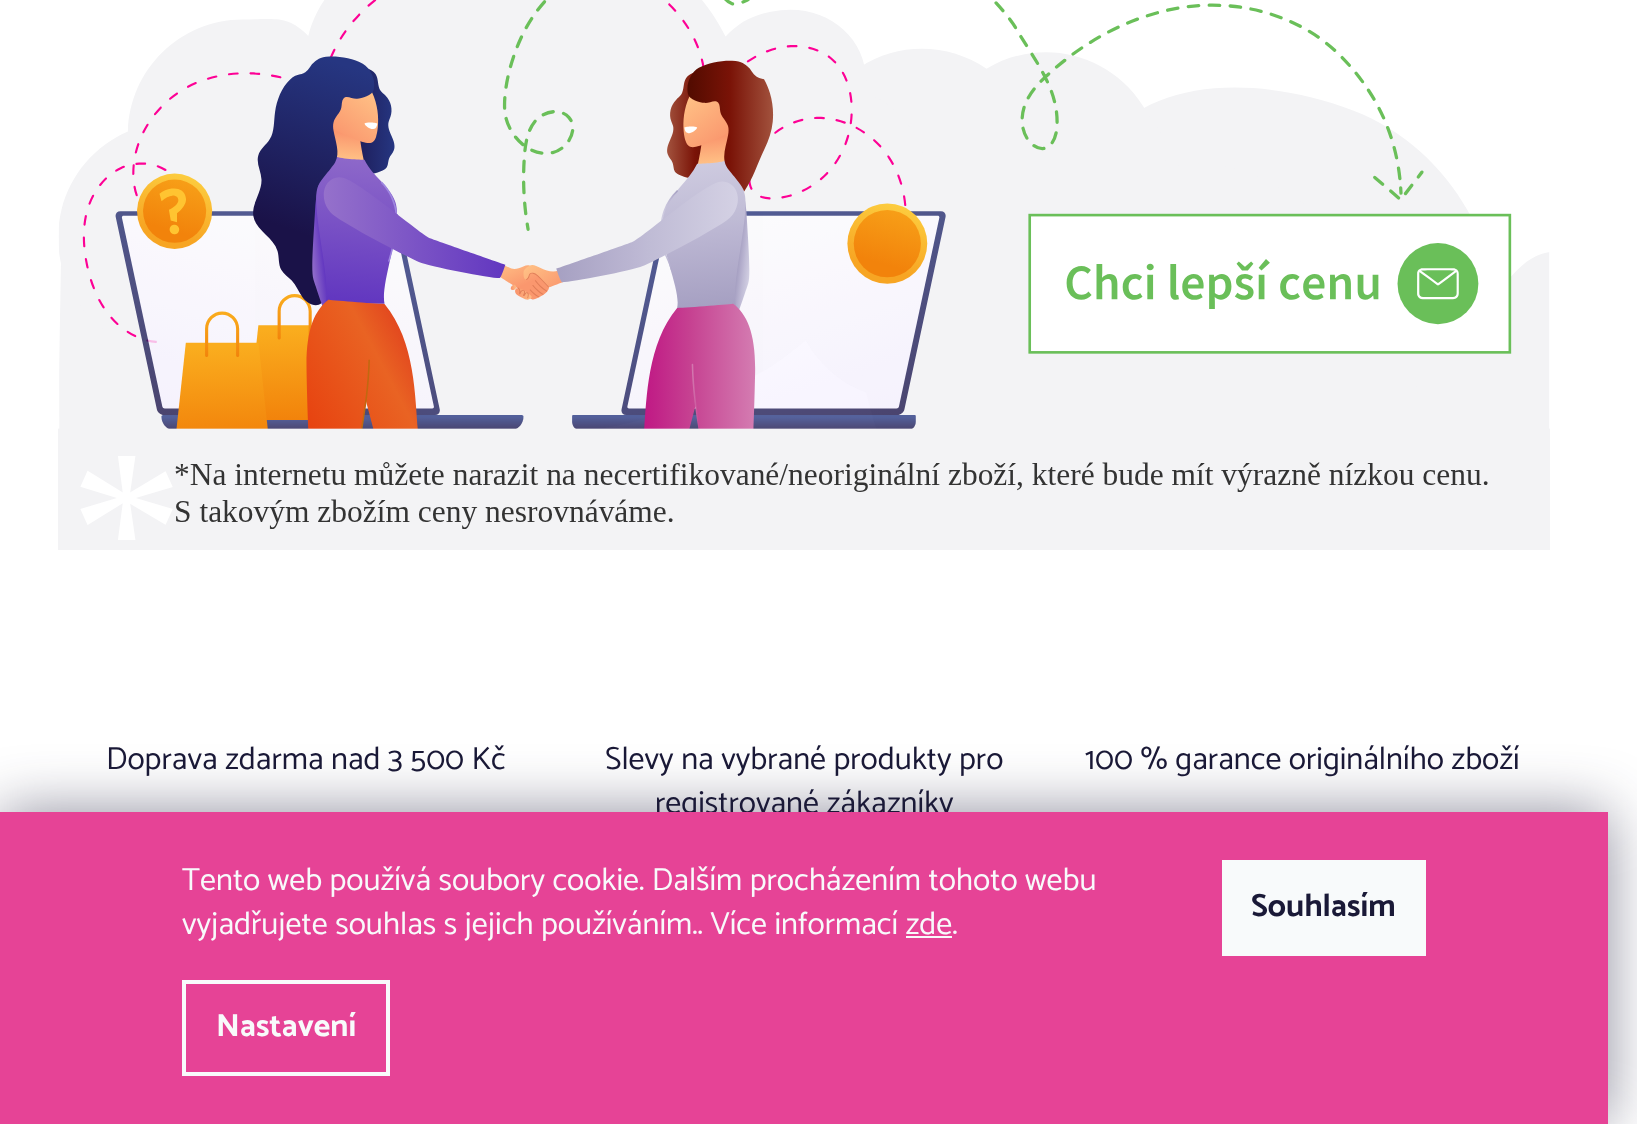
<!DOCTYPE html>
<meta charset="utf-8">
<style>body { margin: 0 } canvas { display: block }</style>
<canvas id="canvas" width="1637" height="1124"></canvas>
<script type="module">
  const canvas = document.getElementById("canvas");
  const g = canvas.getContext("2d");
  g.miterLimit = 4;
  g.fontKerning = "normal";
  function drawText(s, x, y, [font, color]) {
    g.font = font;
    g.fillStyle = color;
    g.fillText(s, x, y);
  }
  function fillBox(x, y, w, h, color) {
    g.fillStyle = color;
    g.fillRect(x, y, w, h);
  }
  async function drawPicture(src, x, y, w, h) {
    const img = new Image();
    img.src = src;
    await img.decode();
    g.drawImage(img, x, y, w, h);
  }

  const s1 = ["32px Catamaran", "#1A1937"];
  const s2 = ["32px Catamaran", "#F8FAFB"];
  const s3 = ["bold 32px Catamaran", "#F8FAFB"];
  const s4 = ["bold 32px Catamaran", "#1A1937"];

  fillBox(0, 0, 1637, 1124, "#FFFFFF");
  await drawPicture("pic1.png", 58, 0, 1492, 550);
  drawText("Doprava zdarma nad 3 500 Kč", 106, 769, s1);
  drawText("Slevy na vybrané produkty pro", 605, 769, s1);
  drawText("registrované zákazníky", 655, 813, s1);
  drawText("100 % garance originálního zboží", 1085, 769, s1);
  g.fillStyle = "rgba(27, 25, 57, 0.5)";
  g.filter = "blur(30px)";
  g.beginPath();
  g.rect(0, 812, 1608, 312);
  g.fill();
  g.filter = "none";
  fillBox(0, 812, 1608, 312, "#E64396");
  drawText("Tento web používá soubory cookie. Dalším procházením tohoto webu", 182, 890, s2);
  drawText("vyjadřujete souhlas s jejich používáním.. Více informací zde.", 182, 934, s2);
  fillBox(906, 936, 46, 2, "#F8FAFB");
  g.strokeStyle = "#F8FAFB";
  g.lineWidth = 4;
  g.strokeRect(184, 982, 204, 92);
  drawText("Nastavení", 216, 1036, s3);
  fillBox(1222, 860, 204, 96, "#F8FAFB");
  drawText("Souhlasím", 1251, 916, s4);
</script>
